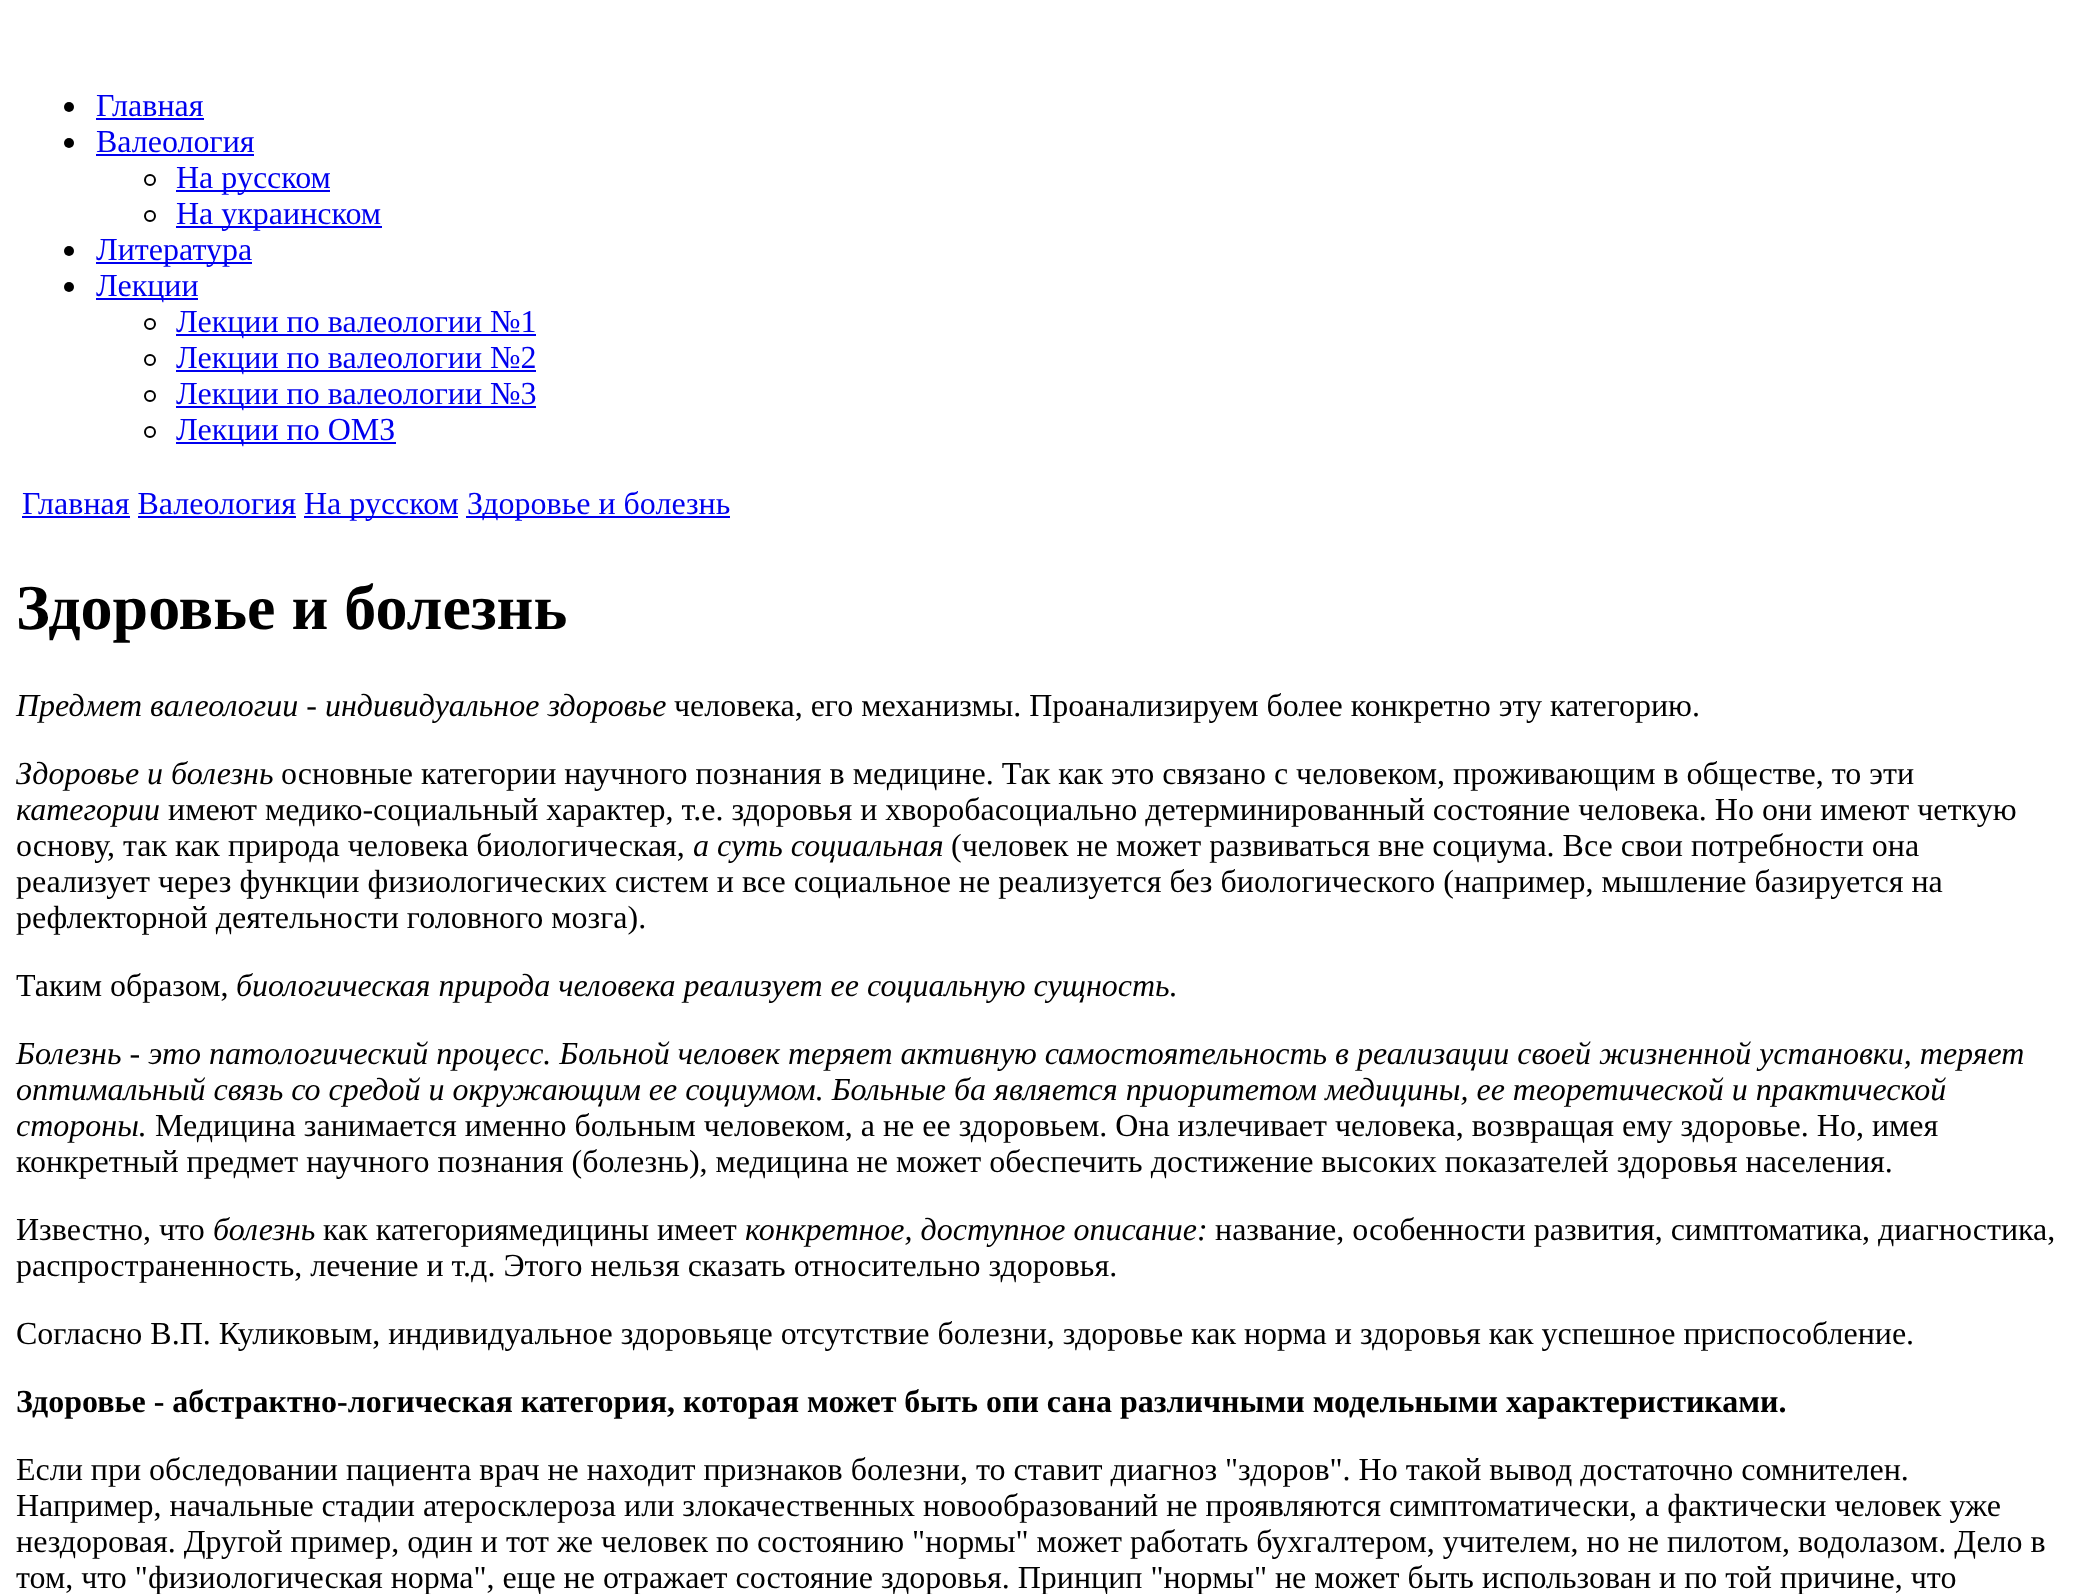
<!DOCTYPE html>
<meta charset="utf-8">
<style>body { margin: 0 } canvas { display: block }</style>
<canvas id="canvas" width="2074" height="1594"></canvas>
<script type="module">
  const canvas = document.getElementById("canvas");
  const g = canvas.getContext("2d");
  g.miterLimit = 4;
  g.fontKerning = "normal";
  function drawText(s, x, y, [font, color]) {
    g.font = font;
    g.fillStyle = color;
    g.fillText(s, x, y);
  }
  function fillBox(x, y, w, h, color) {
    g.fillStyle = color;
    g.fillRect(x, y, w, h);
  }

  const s1 = ["32px Liberation Serif", "#0000EE"];
  const s2 = ["bold 64px Liberation Serif", "#000000"];
  const s3 = ["italic 32px Liberation Serif", "#000000"];
  const s4 = ["32px Liberation Serif", "#000000"];
  const s5 = ["bold 32px Liberation Serif", "#000000"];

  fillBox(0, 0, 2074, 1594, "#FFFFFF");
  g.fillStyle = "#000000";
  g.beginPath();
  g.arc(69, 107, 5, 0, Math.PI * 2);
  g.fill();
  drawText("Главная", 96, 116, s1);
  fillBox(96, 118, 108, 2, "#0000EE");
  g.fillStyle = "#000000";
  g.beginPath();
  g.arc(69, 143, 5, 0, Math.PI * 2);
  g.fill();
  drawText("Валеология", 96, 152, s1);
  fillBox(96, 154, 158, 2, "#0000EE");
  g.beginPath();
  g.arc(150, 180, 5, 0, Math.PI * 2);
  g.strokeStyle = "#000000";
  g.lineWidth = 2;
  g.stroke();
  fillBox(176, 190, 154, 2, "#0000EE");
  drawText("На русском", 176, 188, s1);
  g.beginPath();
  g.arc(150, 216, 5, 0, Math.PI * 2);
  g.stroke();
  fillBox(176, 226, 206, 2, "#0000EE");
  drawText("На украинском", 176, 224, s1);
  g.fillStyle = "#000000";
  g.beginPath();
  g.arc(69, 251, 5, 0, Math.PI * 2);
  g.fill();
  fillBox(96, 262, 156, 2, "#0000EE");
  drawText("Литература", 96, 260, s1);
  g.fillStyle = "#000000";
  g.beginPath();
  g.arc(69, 287, 5, 0, Math.PI * 2);
  g.fill();
  fillBox(96, 298, 102, 2, "#0000EE");
  drawText("Лекции", 96, 296, s1);
  g.beginPath();
  g.arc(150, 324, 5, 0, Math.PI * 2);
  g.stroke();
  fillBox(176, 334, 360, 2, "#0000EE");
  drawText("Лекции по валеологии №1", 176, 332, s1);
  g.beginPath();
  g.arc(150, 360, 5, 0, Math.PI * 2);
  g.stroke();
  fillBox(176, 370, 360, 2, "#0000EE");
  drawText("Лекции по валеологии №2", 176, 368, s1);
  g.beginPath();
  g.arc(150, 396, 5, 0, Math.PI * 2);
  g.stroke();
  fillBox(176, 406, 360, 2, "#0000EE");
  drawText("Лекции по валеологии №3", 176, 404, s1);
  g.beginPath();
  g.arc(150, 432, 5, 0, Math.PI * 2);
  g.stroke();
  fillBox(176, 442, 220, 2, "#0000EE");
  drawText("Лекции по ОМЗ", 176, 440, s1);
  drawText("Главная Валеология", 22, 514, s1);
  fillBox(22, 516, 108, 2, "#0000EE");
  fillBox(304, 516, 154, 2, "#0000EE");
  drawText("На русском", 304, 514, s1);
  fillBox(466, 516, 264, 2, "#0000EE");
  drawText("Здоровье и болезнь", 467, 514, s1);
  fillBox(138, 516, 158, 2, "#0000EE");
  drawText("Здоровье и болезнь", 16, 629, s2);
  drawText("Предмет валеологии - индивидуальное здоровье", 16, 716, s3);
  drawText("человека, его механизмы. Проанализируем более конкретно эту категорию.", 674, 716, s4);
  drawText("Здоровье и болезнь", 16, 784, s3);
  drawText("основные категории научного познания в медицине. Так как это связано с человеком, проживающим в обществе, то эти", 281, 784, s4);
  drawText("категории", 16, 820, s3);
  drawText("имеют медико-социальный характер, т.е. здоровья и хворобасоциально детерминированный состояние человека. Но они имеют четкую", 168, 820, s4);
  drawText("основу, так как природа человека биологическая,", 16, 856, s4);
  drawText("а суть социальная", 693, 856, s3);
  drawText("(человек не может развиваться вне социума. Все свои потребности она", 951, 856, s4);
  drawText("реализует через функции физиологических систем и все социальное не реализуется без биологического (например, мышление базируется на", 16, 892, s4);
  drawText("рефлекторной деятельности головного мозга).", 16, 928, s4);
  drawText("Таким образом,", 16, 996, s4);
  drawText("биологическая природа человека реализует ее социальную сущность.", 236, 996, s3);
  drawText("Болезнь - это патологический процесс. Больной человек теряет активную самостоятельность в реализации своей жизненной установки, теряет", 16, 1064, s3);
  drawText("оптимальный связь со средой и окружающим ее социумом. Больные ба является приоритетом медицины, ее теоретической и практической", 16, 1100, s3);
  drawText("стороны.", 16, 1136, s3);
  drawText("Медицина занимается именно больным человеком, а не ее здоровьем. Она излечивает человека, возвращая ему здоровье. Но, имея", 155, 1136, s4);
  drawText("конкретный предмет научного познания (болезнь), медицина не может обеспечить достижение высоких показателей здоровья населения.", 16, 1172, s4);
  drawText("Известно, что", 16, 1240, s4);
  drawText("болезнь", 213, 1240, s3);
  drawText("как категориямедицины имеет", 323, 1240, s4);
  drawText("конкретное, доступное описание:", 745, 1240, s3);
  drawText("название, особенности развития, симптоматика, диагностика,", 1215, 1240, s4);
  drawText("распространенность, лечение и т.д. Этого нельзя сказать относительно здоровья.", 16, 1276, s4);
  drawText("Согласно В.П. Куликовым, индивидуальное здоровьяце отсутствие болезни, здоровье как норма и здоровья как успешное приспособление.", 16, 1344, s4);
  drawText("Здоровье - абстрактно-логическая категория, которая может быть опи сана различными модельными характеристиками.", 16, 1412, s5);
  drawText("Если при обследовании пациента врач не находит признаков болезни, то ставит диагноз \"здоров\". Но такой вывод достаточно сомнителен.", 16, 1480, s4);
  drawText("Например, начальные стадии атеросклероза или злокачественных новообразований не проявляются симптоматически, а фактически человек уже", 16, 1516, s4);
  drawText("нездоровая. Другой пример, один и тот же человек по состоянию \"нормы\" может работать бухгалтером, учителем, но не пилотом, водолазом. Дело в", 16, 1552, s4);
  drawText("том, что \"физиологическая норма\", еще не отражает состояние здоровья. Принцип \"нормы\" не может быть использован и по той причине, что", 16, 1588, s4);
</script>
